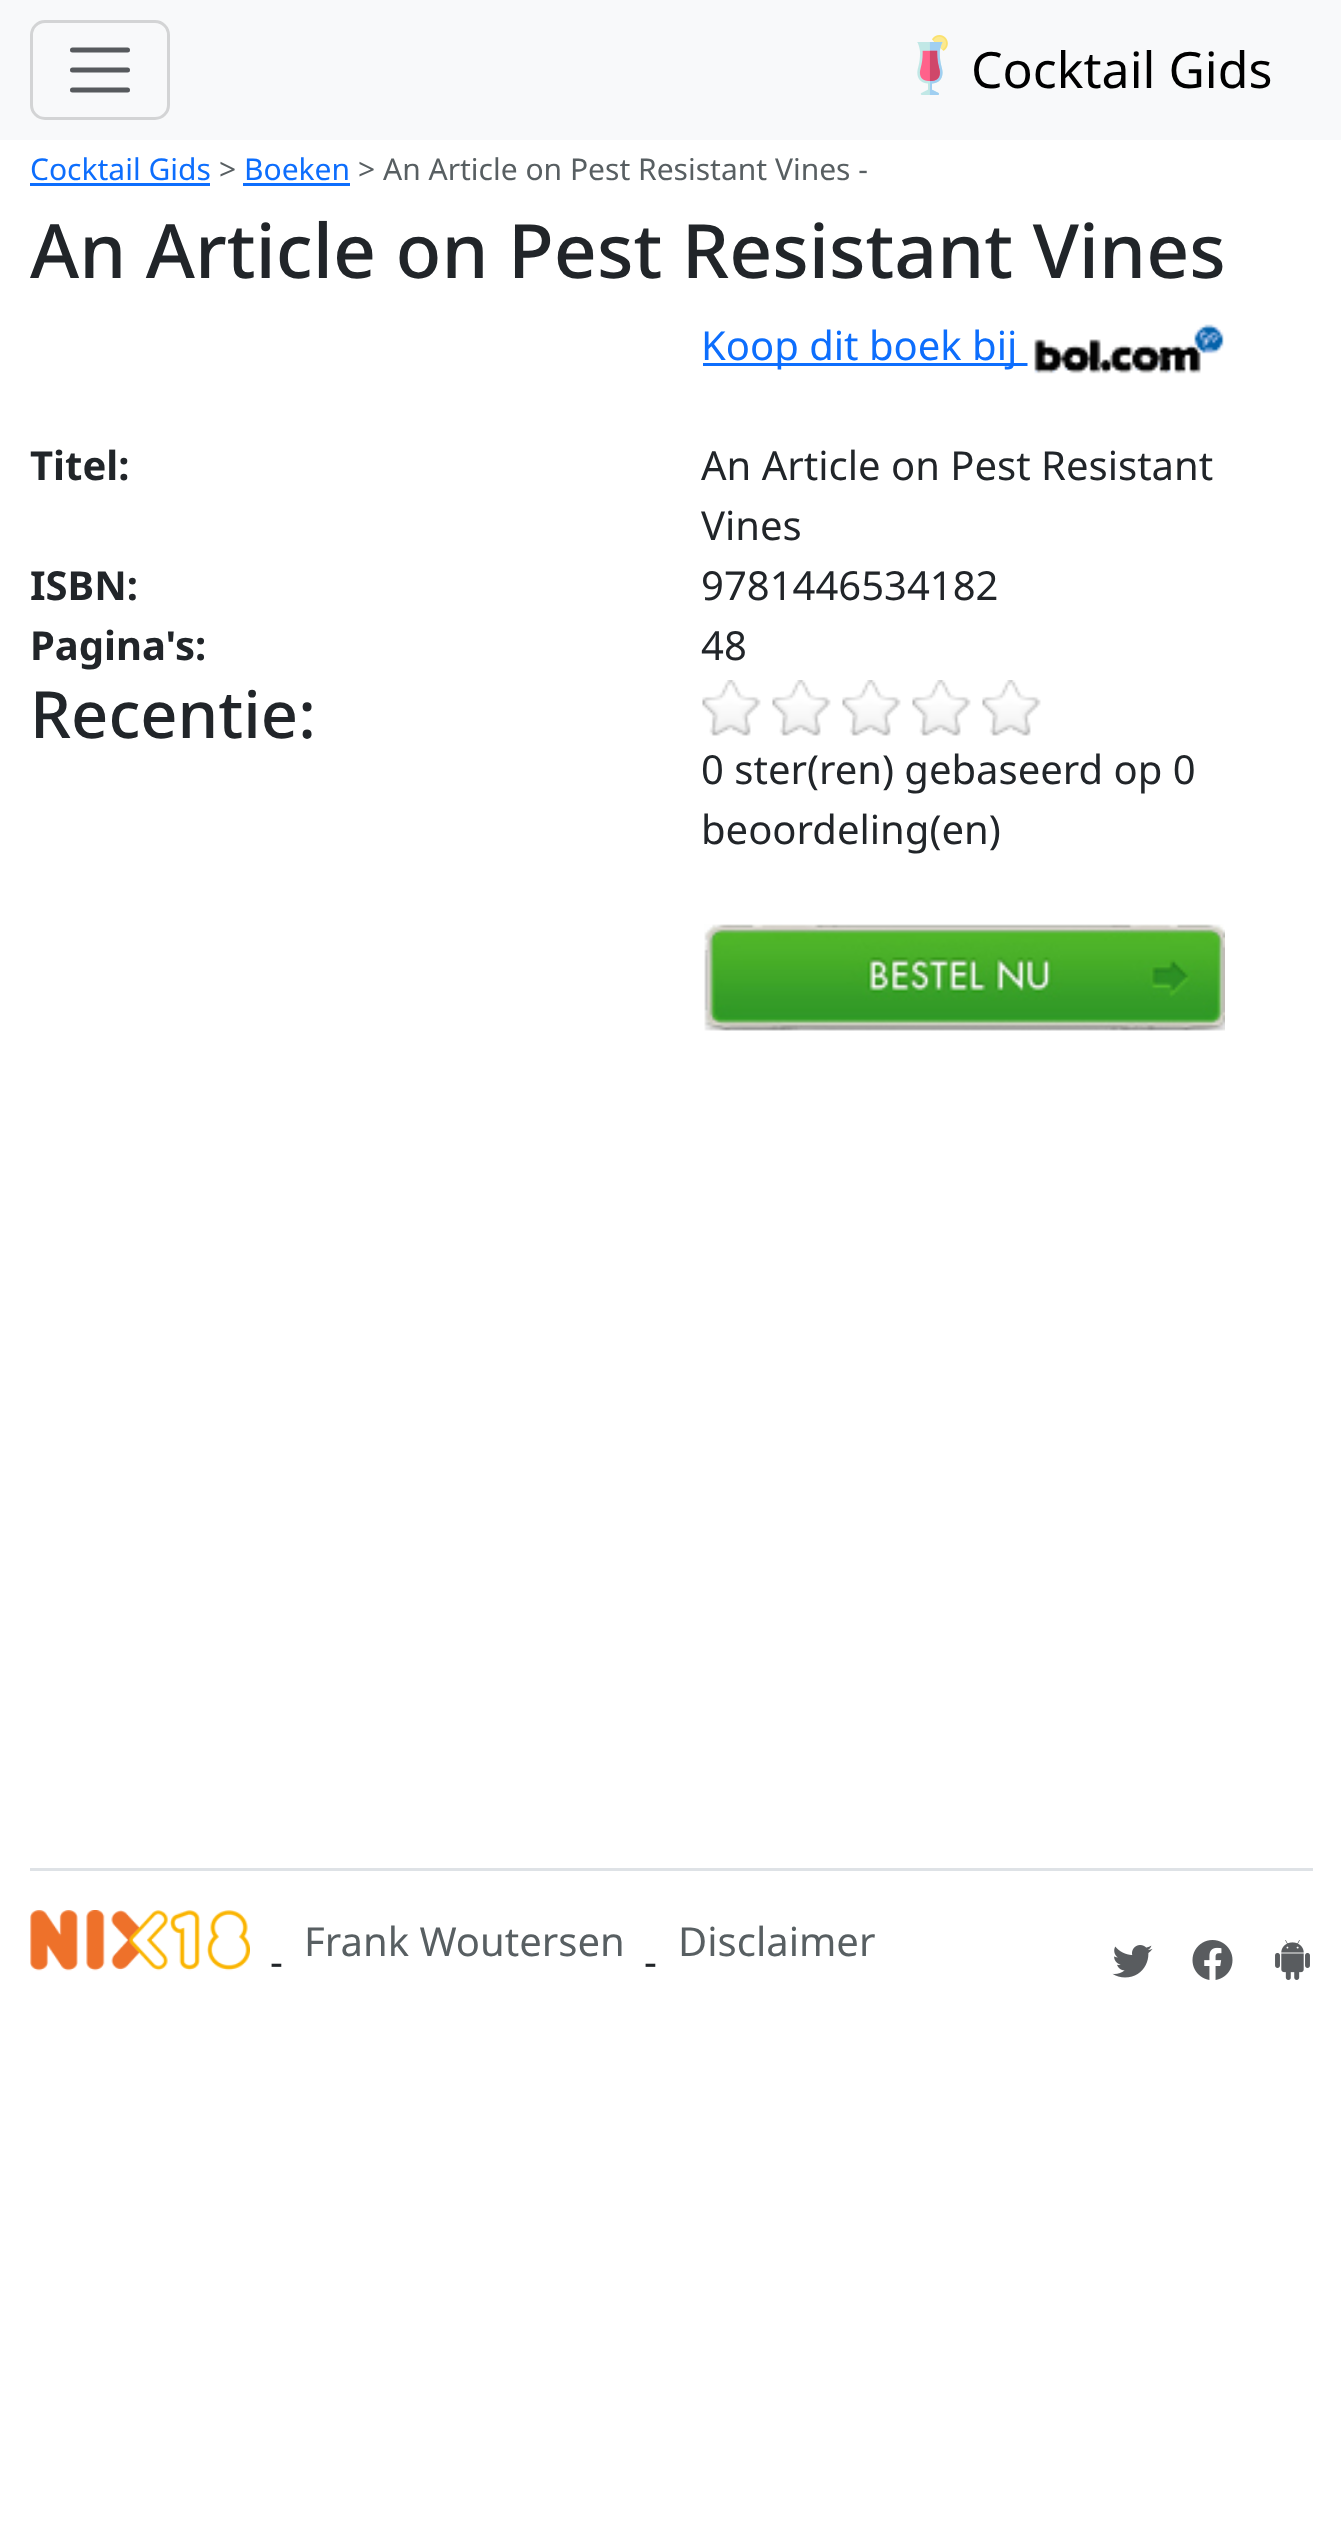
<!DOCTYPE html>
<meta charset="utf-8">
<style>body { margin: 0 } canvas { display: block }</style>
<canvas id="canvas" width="1341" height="2535"></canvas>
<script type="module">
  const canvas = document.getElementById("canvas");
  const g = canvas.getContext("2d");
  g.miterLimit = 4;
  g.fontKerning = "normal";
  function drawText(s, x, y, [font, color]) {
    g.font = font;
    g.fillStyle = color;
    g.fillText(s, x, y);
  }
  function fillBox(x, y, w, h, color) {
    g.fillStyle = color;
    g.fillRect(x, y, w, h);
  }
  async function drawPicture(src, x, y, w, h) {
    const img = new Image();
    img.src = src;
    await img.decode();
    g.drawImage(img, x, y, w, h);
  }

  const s1 = ["50px Noto Sans", "#000000"];
  const s2 = ["30px Noto Sans", "#0D6EFD"];
  const s3 = ["30px Noto Sans", "#585F62"];
  const s4 = ["500 75.1px Noto Sans", "#212529"];
  const s5 = ["40px Noto Sans", "#0D6EFD"];
  const s6 = ["bold 40px Noto Sans", "#212529"];
  const s7 = ["40px Noto Sans", "#212529"];
  const s8 = ["500 65px Noto Sans", "#212529"];
  const s9 = ["40px Noto Sans", "#585F62"];

  fillBox(0, 0, 1341, 2535, "#FFFFFF");
  fillBox(0, 0, 1341, 140, "#F8F9FA");
  g.beginPath();
  g.roundRect(31.5, 21.5, 137, 97, 13.5);
  g.strokeStyle = "#D3D4D5";
  g.lineWidth = 3;
  g.stroke();
  g.beginPath();
  g.moveTo(72.5, 50);
  g.lineTo(127.5, 50);
  g.moveTo(72.5, 70);
  g.lineTo(127.5, 70);
  g.moveTo(72.5, 90);
  g.lineTo(127.5, 90);
  g.strokeStyle = "#575A5D";
  g.lineWidth = 5;
  g.lineCap = "round";
  g.stroke();
  await drawPicture("pic1.png", 917, 35, 31, 60);
  drawText("Cocktail Gids", 971, 88, s1);
  drawText("Cocktail Gids", 30, 180, s2);
  fillBox(30, 183, 180, 3, "#0D6EFD");
  drawText(">", 219, 180, s3);
  drawText("Boeken", 244, 180, s2);
  fillBox(243, 183, 107, 3, "#0D6EFD");
  drawText("> An Article on Pest Resistant Vines -", 358, 180, s3);
  drawText("An Article on Pest Resistant Vines", 30, 278, s4);
  fillBox(703, 363, 325, 3, "#0D6EFD");
  drawText("Koop dit boek bij", 701, 360, s5);
  await drawPicture("pic2.png", 1027, 324, 197, 50);
  drawText("Titel:", 30, 480, s6);
  drawText("An Article on Pest Resistant", 701, 480, s7);
  drawText("Vines", 701, 540, s7);
  drawText("ISBN:", 30, 600, s6);
  drawText("9781446534182", 701, 600, s7);
  drawText("Pagina's:", 30, 660, s6);
  drawText("48", 701, 660, s7);
  drawText("Recentie:", 30, 738, s8);
  await drawPicture("pic3.png", 702, 680, 59, 56);
  await drawPicture("pic4.png", 772, 680, 59, 56);
  await drawPicture("pic3.png", 842, 680, 59, 56);
  await drawPicture("pic3.png", 912, 680, 59, 56);
  await drawPicture("pic5.png", 982, 680, 59, 56);
  drawText("0 ster(ren) gebaseerd op 0", 701, 784, s7);
  drawText("beoordeling(en)", 701, 844, s7);
  await drawPicture("pic6.png", 704, 924, 521, 107);
  fillBox(30, 1868, 1283, 3, "#DEE2E6");
  await drawPicture("pic7.png", 30, 1910, 220, 61);
  drawText("Frank Woutersen", 304, 1956, s9);
  drawText("Disclaimer", 678, 1956, s9);
  drawText("-", 270, 1976, s7);
  drawText("-", 644, 1976, s7);
  await drawPicture("pic8.png", 1112, 1945, 41, 33);
  await drawPicture("pic9.png", 1192, 1940, 41, 40);
  await drawPicture("pic10.png", 1275, 1940, 35, 40);
</script>
